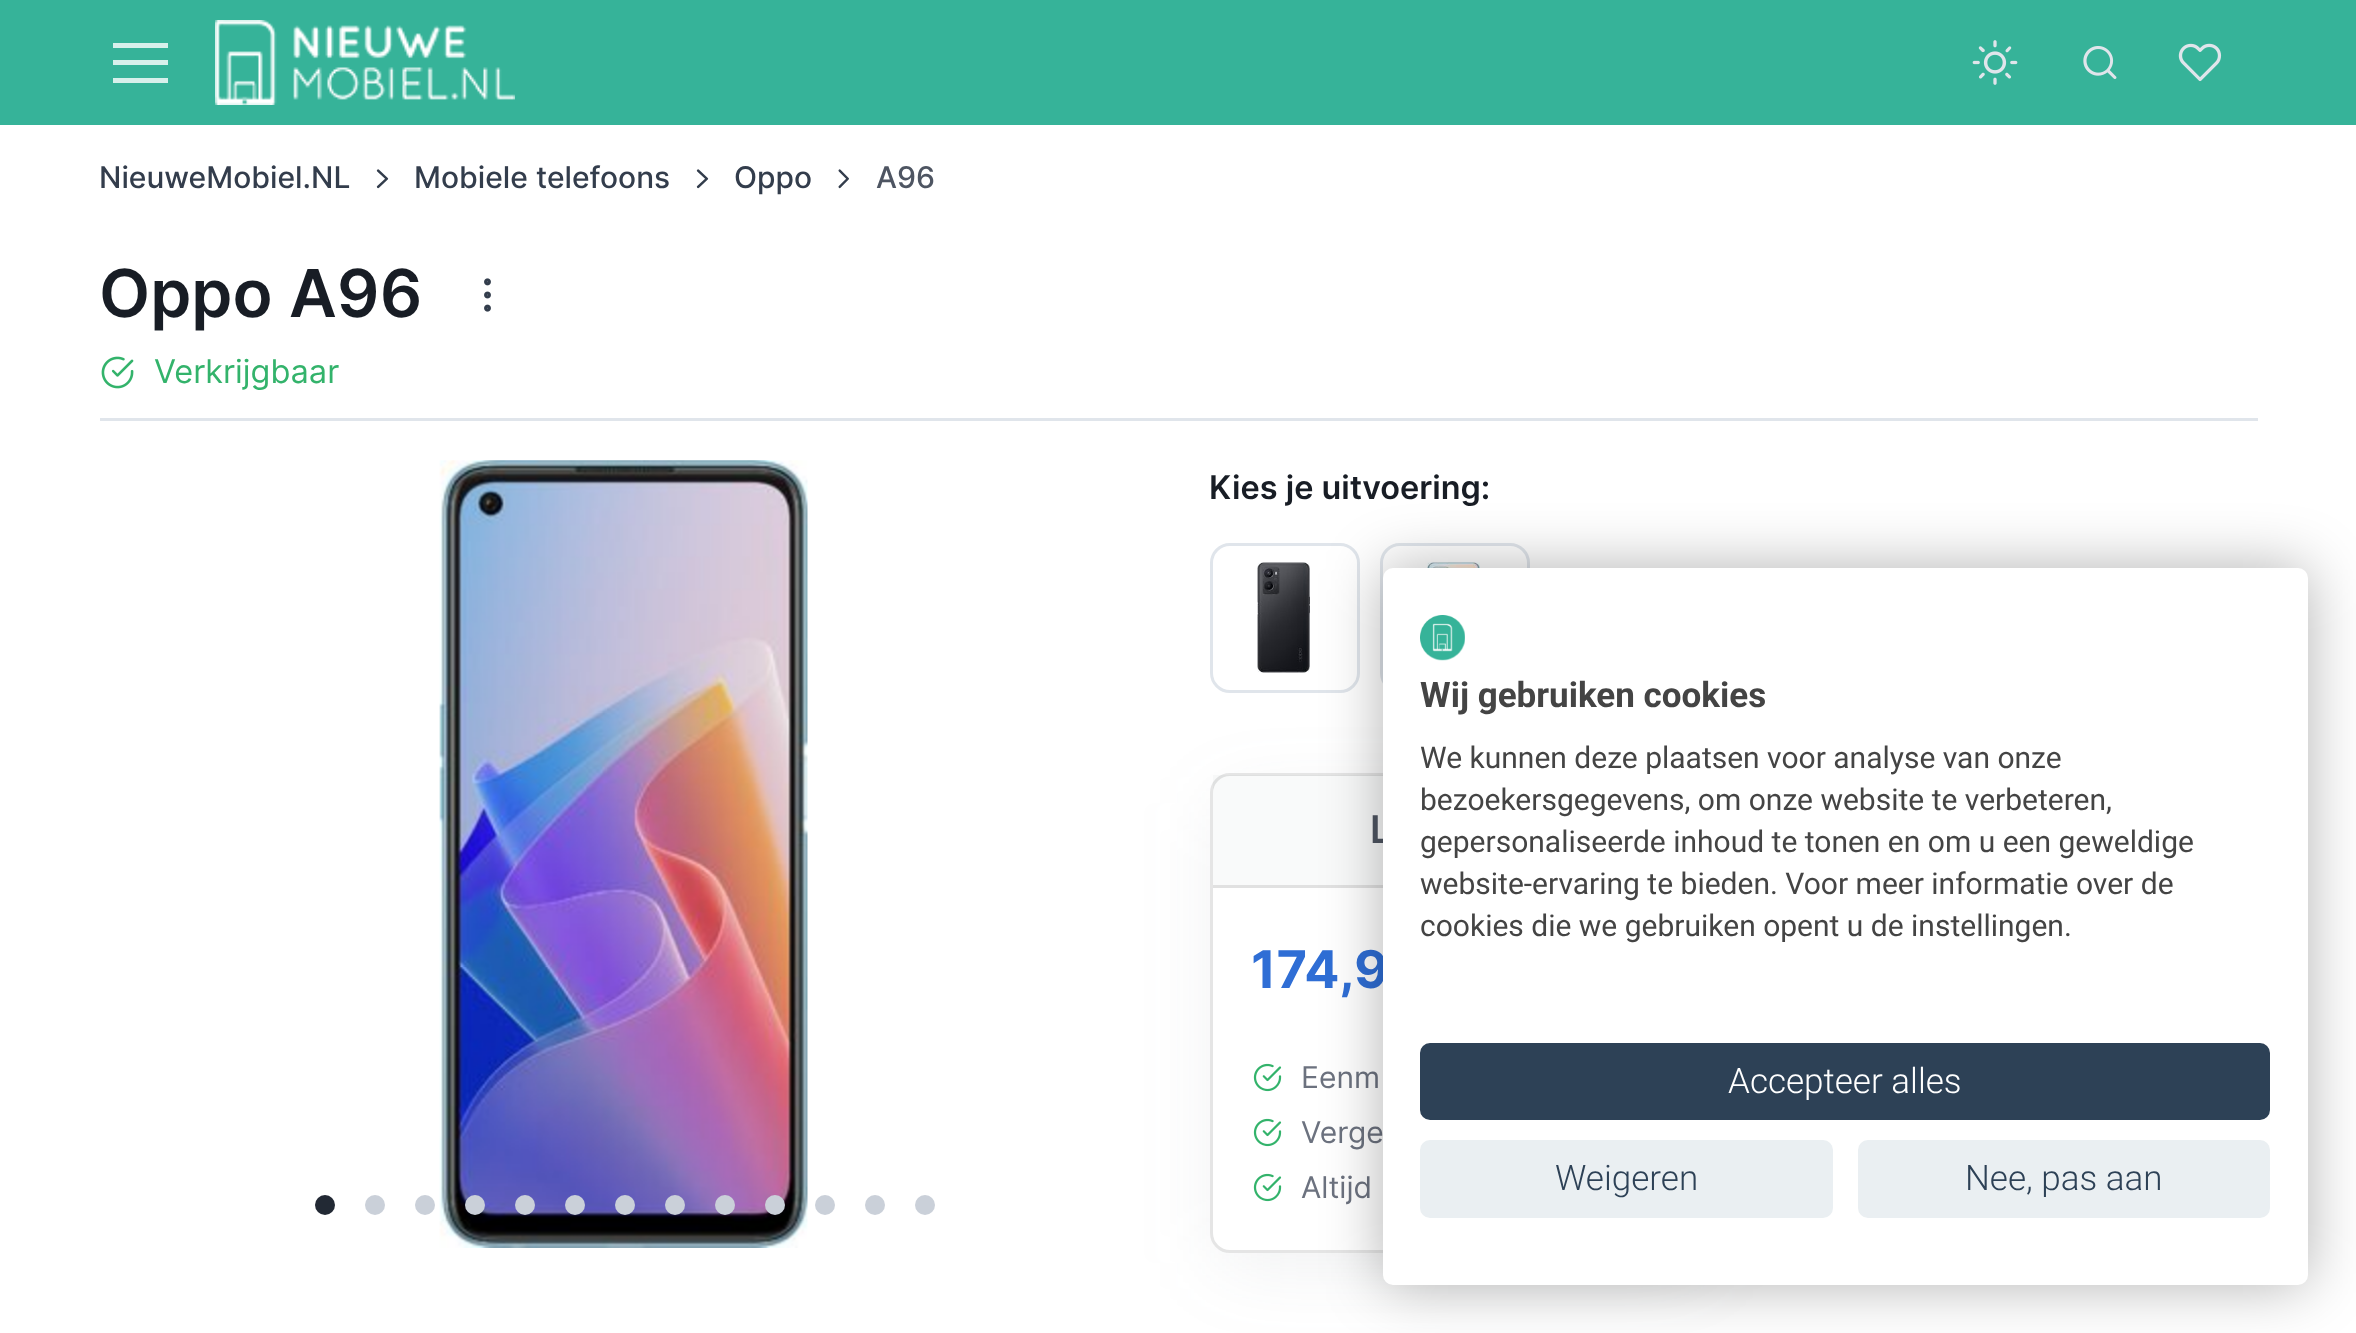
<!DOCTYPE html>
<meta charset="utf-8">
<style>body { margin: 0 } canvas { display: block }</style>
<canvas id="canvas" width="2356" height="1333"></canvas>
<script type="module">
  const canvas = document.getElementById("canvas");
  const g = canvas.getContext("2d");
  g.miterLimit = 4;
  g.fontKerning = "normal";
  function drawText(s, x, y, [font, color]) {
    g.font = font;
    g.fillStyle = color;
    g.fillText(s, x, y);
  }
  function fillBox(x, y, w, h, color) {
    g.fillStyle = color;
    g.fillRect(x, y, w, h);
  }
  function fillRounded(x, y, w, h, r, color) {
    g.fillStyle = color;
    g.beginPath();
    g.roundRect(x, y, w, h, r);
    g.fill();
  }
  async function drawPicture(src, x, y, w, h) {
    const img = new Image();
    img.src = src;
    await img.decode();
    g.drawImage(img, x, y, w, h);
  }

  const s1 = ["500 30px Inter", "#333D4C"];
  const s2 = ["500 30px Inter", "#4E5562"];
  const s3 = ["600 66px Inter", "#181D25"];
  const s4 = ["32.5px Inter", "#33B36B"];
  const s5 = ["600 32.5px Inter", "#181D25"];
  const s6 = ["600 38px Inter", "#4E5562"];
  const s7 = ["bold 52px Inter", "#2F6ED5"];
  const s8 = ["30px Inter", "#6C727F"];
  const s9 = ["bold 35px Roboto", "#444444"];
  const s10 = ["30px Roboto", "#444444"];
  const s11 = ["300 35px Roboto", "#FFFFFF"];
  const s12 = ["300 35px Roboto", "#2D4156"];

  fillBox(0, 0, 2356, 1333, "#FFFFFF");
  fillBox(0, 0, 2356, 125, "#36B399");
  fillBox(113, 60, 55, 5, "#D7F0EB");
  fillBox(113, 43, 55, 5, "#D7F0EB");
  fillBox(113, 78, 55, 5, "#D7F0EB");
  await drawPicture("pic1.png", 215, 20, 300, 85);
  await drawPicture("pic2.png", 1972, 40, 46, 45);
  await drawPicture("pic3.png", 2083, 46, 34, 33);
  await drawPicture("pic4.png", 2178, 43, 44, 39);
  drawText("NieuweMobiel.NL", 99, 188, s1);
  await drawPicture("pic5.png", 376, 169, 13, 20);
  drawText("Mobiele telefoons", 414, 188, s1);
  await drawPicture("pic5.png", 696, 169, 13, 20);
  drawText("Oppo", 734, 188, s1);
  await drawPicture("pic6.png", 838, 169, 11, 20);
  drawText("A96", 876, 188, s2);
  drawText("Oppo A96", 99, 317, s3);
  await drawPicture("pic7.png", 484, 278, 7, 34);
  fillBox(100, 418, 2158, 3, "#E0E5EB");
  await drawPicture("pic8.png", 101, 356, 33, 33);
  drawText("Verkrijgbaar", 154, 383, s4);
  await drawPicture("pic9.png", 439, 460, 369, 788);
  g.fillStyle = "#222934";
  g.beginPath();
  g.arc(325, 1205, 10, 0, Math.PI * 2);
  g.fill();
  g.fillStyle = "#CAD0D9";
  g.beginPath();
  g.arc(375, 1205, 10, 0, Math.PI * 2);
  g.fill();
  g.beginPath();
  g.arc(425, 1205, 10, 0, Math.PI * 2);
  g.fill();
  g.beginPath();
  g.arc(475, 1205, 10, 0, Math.PI * 2);
  g.fill();
  g.beginPath();
  g.arc(525, 1205, 10, 0, Math.PI * 2);
  g.fill();
  g.beginPath();
  g.arc(575, 1205, 10, 0, Math.PI * 2);
  g.fill();
  g.beginPath();
  g.arc(625, 1205, 10, 0, Math.PI * 2);
  g.fill();
  g.beginPath();
  g.arc(675, 1205, 10, 0, Math.PI * 2);
  g.fill();
  g.beginPath();
  g.arc(725, 1205, 10, 0, Math.PI * 2);
  g.fill();
  g.beginPath();
  g.arc(775, 1205, 10, 0, Math.PI * 2);
  g.fill();
  g.beginPath();
  g.arc(825, 1205, 10, 0, Math.PI * 2);
  g.fill();
  g.beginPath();
  g.arc(875, 1205, 10, 0, Math.PI * 2);
  g.fill();
  g.beginPath();
  g.arc(925, 1205, 10, 0, Math.PI * 2);
  g.fill();
  drawText("Kies je uitvoering:", 1209, 499, s5);
  g.beginPath();
  g.roundRect(1211.5, 544.5, 147, 147, 18.5);
  g.strokeStyle = "#E0E5EB";
  g.lineWidth = 3;
  g.stroke();
  await drawPicture("pic10.png", 1257, 562, 53, 111);
  g.beginPath();
  g.roundRect(1381.5, 544.5, 147, 147, 18.5);
  g.stroke();
  await drawPicture("pic11.png", 1427, 562, 53, 6);
  g.fillStyle = "rgba(102, 110, 122, 0.1)";
  g.filter = "blur(40px)";
  g.beginPath();
  g.roundRect(1220, 803, 483, 460, 10);
  g.fill();
  g.filter = "none";
  g.fillStyle = "#FFFFFF";
  g.beginPath();
  g.roundRect(1211.5, 774.5, 500, 477, 18.5);
  g.fill();
  g.strokeStyle = "#E5E5E5";
  g.stroke();
  fillBox(1213, 775, 170, 110, "rgba(78, 85, 98, 0.03)");
  fillBox(1213, 885, 170, 3, "#E1E1E1");
  drawText("L", 1370, 843, s6);
  drawText("174,9", 1251, 988, s7);
  await drawPicture("pic12.png", 1253, 1063, 29, 29);
  drawText("Eenm", 1301, 1088, s8);
  await drawPicture("pic12.png", 1253, 1118, 29, 29);
  drawText("Verge", 1301, 1143, s8);
  await drawPicture("pic12.png", 1253, 1173, 29, 29);
  drawText("Altijd", 1301, 1198, s8);
  g.fillStyle = "rgba(0, 0, 0, 0.3)";
  g.filter = "blur(30px)";
  g.beginPath();
  g.roundRect(1383, 568, 925, 717, 10);
  g.fill();
  g.filter = "none";
  fillRounded(1383, 568, 925, 717, 10, "#FFFFFF");
  await drawPicture("pic13.png", 1420, 615, 45, 46);
  drawText("Wij gebruiken cookies", 1420, 707, s9);
  drawText("We kunnen deze plaatsen voor analyse van onze", 1420, 768, s10);
  drawText("bezoekersgegevens, om onze website te verbeteren,", 1420, 810, s10);
  drawText("gepersonaliseerde inhoud te tonen en om u een geweldige", 1420, 852, s10);
  drawText("website-ervaring te bieden. Voor meer informatie over de", 1420, 894, s10);
  drawText("cookies die we gebruiken opent u de instellingen.", 1420, 936, s10);
  g.fillStyle = "#2D4156";
  g.beginPath();
  g.roundRect(1421.5, 1044.5, 847, 74, 8.5);
  g.fill();
  g.strokeStyle = "#2D4156";
  g.stroke();
  drawText("Accepteer alles", 1728, 1093, s11);
  g.fillStyle = "#EAEFF2";
  g.beginPath();
  g.roundRect(1421.5, 1141.5, 410, 75, 8.5);
  g.fill();
  g.strokeStyle = "#EAEFF2";
  g.stroke();
  drawText("Weigeren", 1555, 1190, s12);
  g.fillStyle = "#EAEFF2";
  g.beginPath();
  g.roundRect(1859.5, 1141.5, 409, 75, 8.5);
  g.fill();
  g.stroke();
  drawText("Nee, pas aan", 1965, 1190, s12);
</script>
